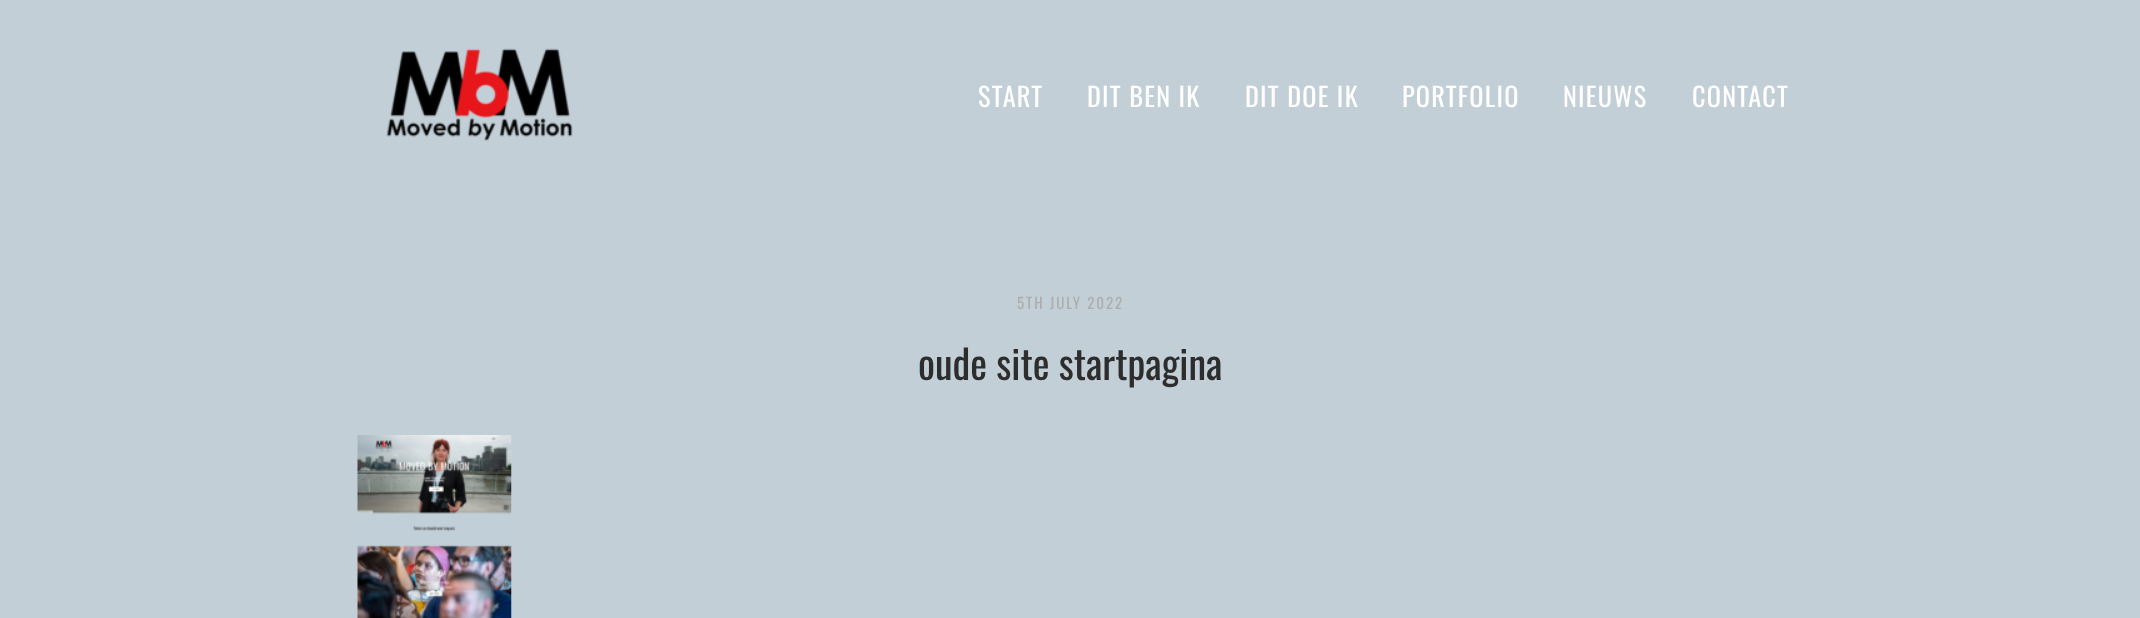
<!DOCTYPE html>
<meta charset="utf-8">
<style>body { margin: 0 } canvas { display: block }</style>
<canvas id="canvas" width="2140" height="618"></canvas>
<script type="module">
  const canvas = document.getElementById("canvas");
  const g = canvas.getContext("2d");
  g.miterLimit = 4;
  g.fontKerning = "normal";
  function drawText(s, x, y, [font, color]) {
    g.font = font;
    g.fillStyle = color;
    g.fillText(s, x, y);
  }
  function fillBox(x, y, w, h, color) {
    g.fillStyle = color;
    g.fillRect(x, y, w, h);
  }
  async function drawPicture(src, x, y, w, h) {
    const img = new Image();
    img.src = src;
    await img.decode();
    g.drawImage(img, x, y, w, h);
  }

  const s1 = ["26.25px Oswald", "#FFFFFF"];
  const s2 = ["15px Oswald", "#ADADAD"];
  const s3 = ["40px Oswald", "#2D2D2D"];

  fillBox(0, 0, 2140, 618, "#C3CFD7");
  await drawPicture("pic1.png", 386, 48, 187, 93);
  g.letterSpacing = "1.25px";
  drawText("START", 978, 107, s1);
  drawText("DIT BEN IK", 1087, 107, s1);
  drawText("DIT DOE IK", 1245, 107, s1);
  drawText("PORTFOLIO", 1402, 107, s1);
  drawText("NIEUWS", 1563, 107, s1);
  drawText("CONTACT", 1692, 107, s1);
  g.letterSpacing = "1.9px";
  drawText("5TH JULY 2022", 1017, 309, s2);
  g.letterSpacing = "0px";
  drawText("oude site startpagina", 918, 380, s3);
  await drawPicture("pic2.png", 357, 435, 155, 183);
</script>
